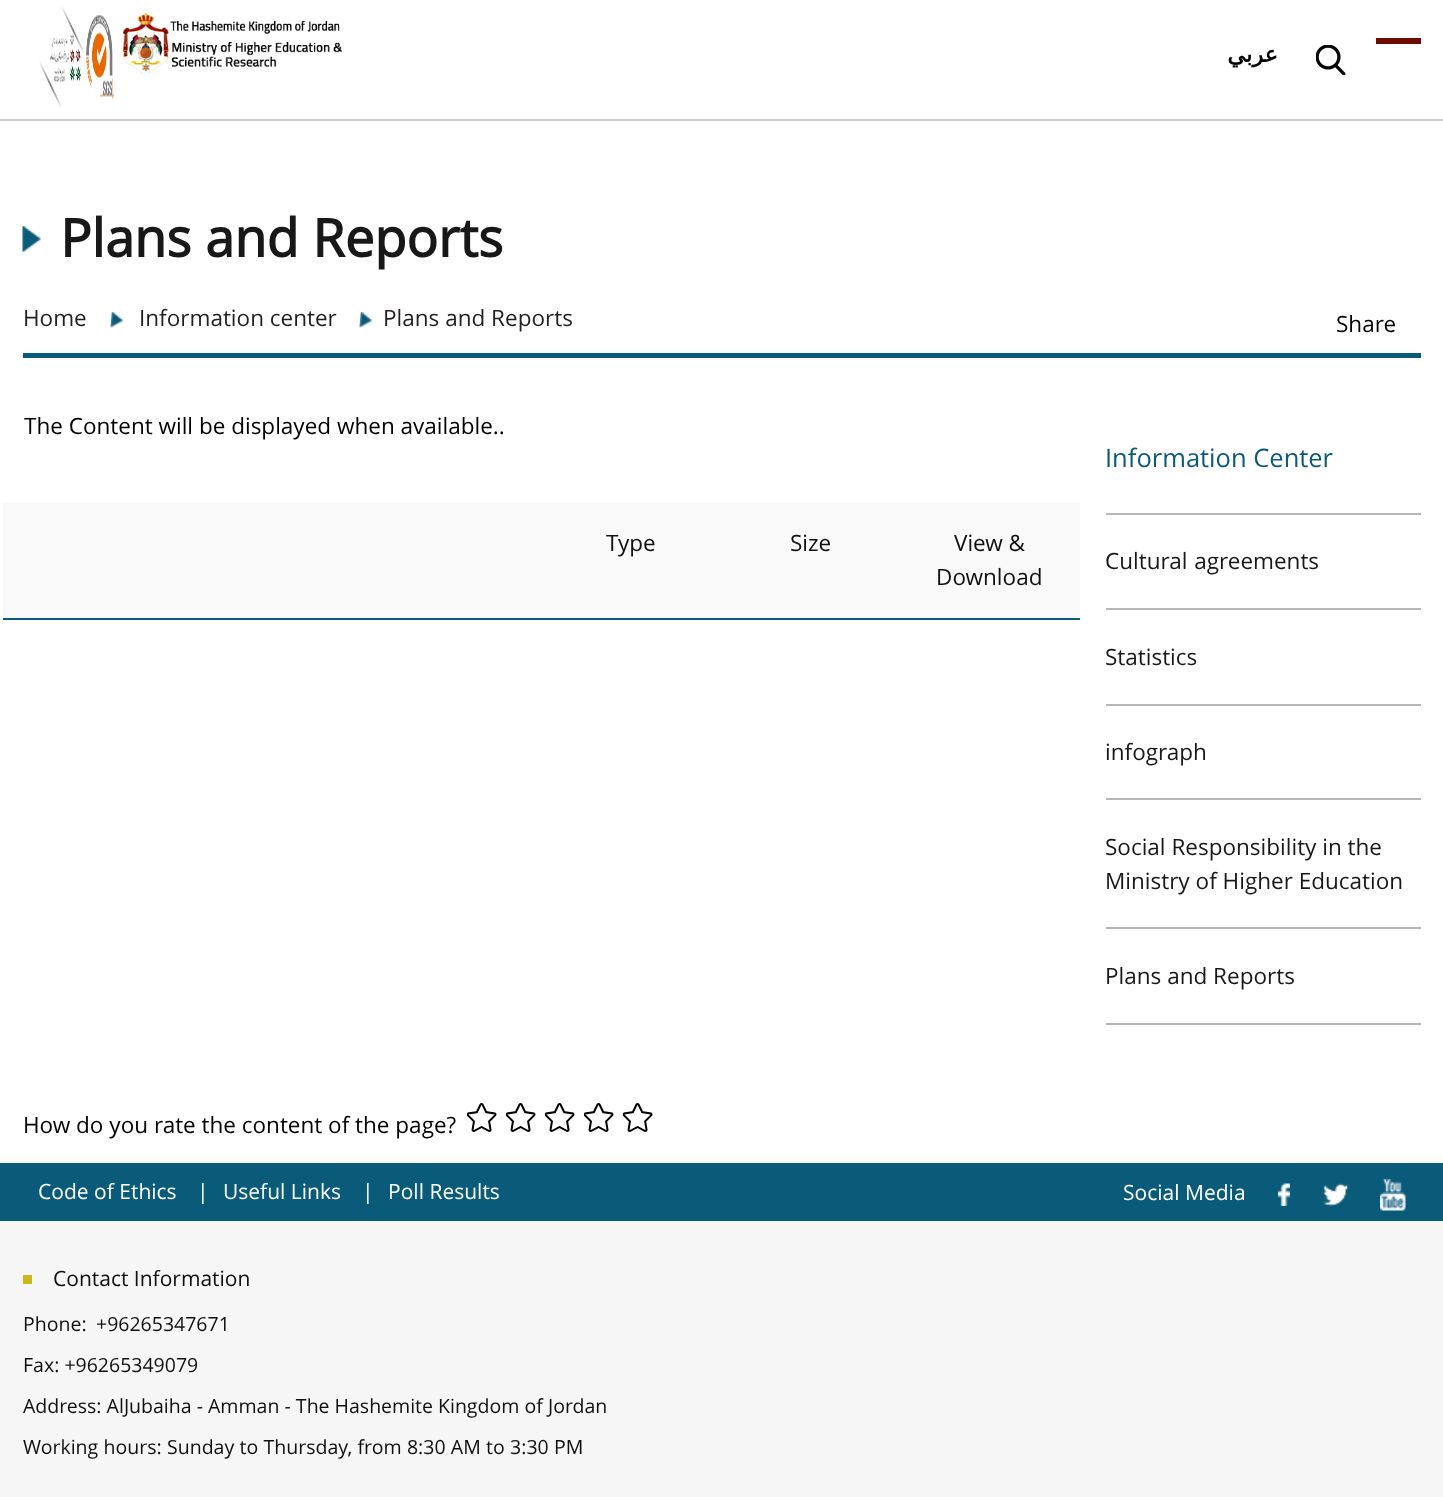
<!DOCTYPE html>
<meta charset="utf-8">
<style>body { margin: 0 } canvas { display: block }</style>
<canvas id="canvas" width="1443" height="1497"></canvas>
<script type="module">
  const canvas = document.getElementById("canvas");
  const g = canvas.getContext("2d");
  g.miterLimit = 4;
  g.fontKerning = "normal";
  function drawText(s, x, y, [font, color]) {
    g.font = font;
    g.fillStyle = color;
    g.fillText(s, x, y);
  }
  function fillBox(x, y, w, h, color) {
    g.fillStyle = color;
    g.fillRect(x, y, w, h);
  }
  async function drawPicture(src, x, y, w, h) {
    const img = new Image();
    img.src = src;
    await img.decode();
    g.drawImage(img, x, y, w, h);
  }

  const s1 = ["bold 22.5px DejaVu Sans", "#000000"];
  const s2 = ["bold 52.5px Open Sans", "#181818"];
  const s3 = ["22.5px Open Sans", "#231F20"];
  const s4 = ["22.5px Open Sans", "#000000"];
  const s5 = ["22.5px Open Sans", "#101010"];
  const s6 = ["25.5px Open Sans", "#0A5B7A"];
  const s7 = ["22.5px Open Sans", "#181818"];
  const s8 = ["21px Open Sans", "#FFFFFF"];
  const s9 = ["21px Open Sans", "#101010"];
  const s10 = ["19.5px Open Sans", "#101010"];

  fillBox(0, 0, 1443, 1497, "#FFFFFF");
  await drawPicture("pic1.png", 39, 6, 75, 102);
  await drawPicture("pic2.png", 123, 12, 219, 62);
  fillBox(0, 119, 1443, 2, "#CCCCCC");
  fillBox(1376, 38, 45, 6, "#6D0B00");
  g.direction = "rtl";
  drawText("عربي", 1278, 62, s1);
  await drawPicture("pic3.png", 1316, 45, 30, 30);
  await drawPicture("pic4.png", 22, 226, 19, 26);
  g.direction = "ltr";
  drawText("Plans and Reports", 60, 257, s2);
  drawText("Home", 23, 326, s3);
  await drawPicture("pic5.png", 110, 312, 14, 16);
  drawText("Information center", 139, 326, s3);
  await drawPicture("pic5.png", 359, 312, 14, 16);
  drawText("Plans and Reports", 383, 326, s3);
  drawText("Share", 1336, 332, s4);
  fillBox(23, 353, 1398, 5, "#0A5B7A");
  drawText("The Content will be displayed when available..", 24, 434, s4);
  fillBox(3, 503, 1077, 115, "#F9F9F9");
  fillBox(3, 618, 1077, 2, "#0A5B7A");
  drawText("Type", 606, 551, s5);
  drawText("Size", 790, 551, s5);
  drawText("View &", 954, 551, s5);
  drawText("Download", 936, 585, s5);
  fillBox(1106, 513, 315, 2, "#B7B7B7");
  drawText("Information Center", 1105, 467, s6);
  fillBox(1106, 608, 315, 2, "#B7B7B7");
  g.wordSpacing = "1px";
  drawText("Cultural agreements", 1105, 569, s7);
  fillBox(1106, 704, 315, 2, "#B7B7B7");
  g.wordSpacing = "0px";
  drawText("Statistics", 1105, 665, s7);
  fillBox(1106, 798, 315, 2, "#B7B7B7");
  drawText("infograph", 1105, 760, s7);
  fillBox(1106, 927, 315, 2, "#B7B7B7");
  drawText("Social Responsibility in the", 1105, 855, s7);
  drawText("Ministry of Higher Education", 1105, 889, s7);
  fillBox(1106, 1023, 315, 2, "#B7B7B7");
  drawText("Plans and Reports", 1105, 984, s7);
  drawText("How do you rate the content of the page?", 23, 1133, s4);
  await drawPicture("pic6.png", 467, 1103, 30, 29);
  await drawPicture("pic6.png", 506, 1103, 30, 29);
  await drawPicture("pic6.png", 545, 1103, 30, 29);
  await drawPicture("pic6.png", 584, 1103, 30, 29);
  await drawPicture("pic6.png", 623, 1103, 30, 29);
  fillBox(0, 1163, 1443, 58, "#0A5B7A");
  drawText("Code of Ethics", 38, 1199, s8);
  drawText("|", 197, 1199, s8);
  drawText("Useful Links", 223, 1199, s8);
  drawText("|", 362, 1199, s8);
  drawText("Poll Results", 388, 1199, s8);
  drawText("Social Media", 1123, 1200, s8);
  await drawPicture("pic7.png", 1278, 1183, 12, 23);
  await drawPicture("pic8.png", 1323, 1183, 26, 24);
  await drawPicture("pic9.png", 1380, 1178, 26, 33);
  fillBox(0, 1221, 1443, 276, "#F6F6F6");
  fillBox(23, 1275, 9, 9, "#CEB616");
  drawText("Contact Information", 53, 1286, s9);
  drawText("Phone:", 23, 1331, s10);
  drawText("+96265347671", 96, 1331, s10);
  drawText("Fax: +96265349079", 23, 1372, s10);
  drawText("Address: AlJubaiha - Amman - The Hashemite Kingdom of Jordan", 23, 1413, s10);
  g.wordSpacing = "0.25px";
  drawText("Working hours: Sunday to Thursday, from 8:30 AM to 3:30 PM", 23, 1454, s10);
</script>
